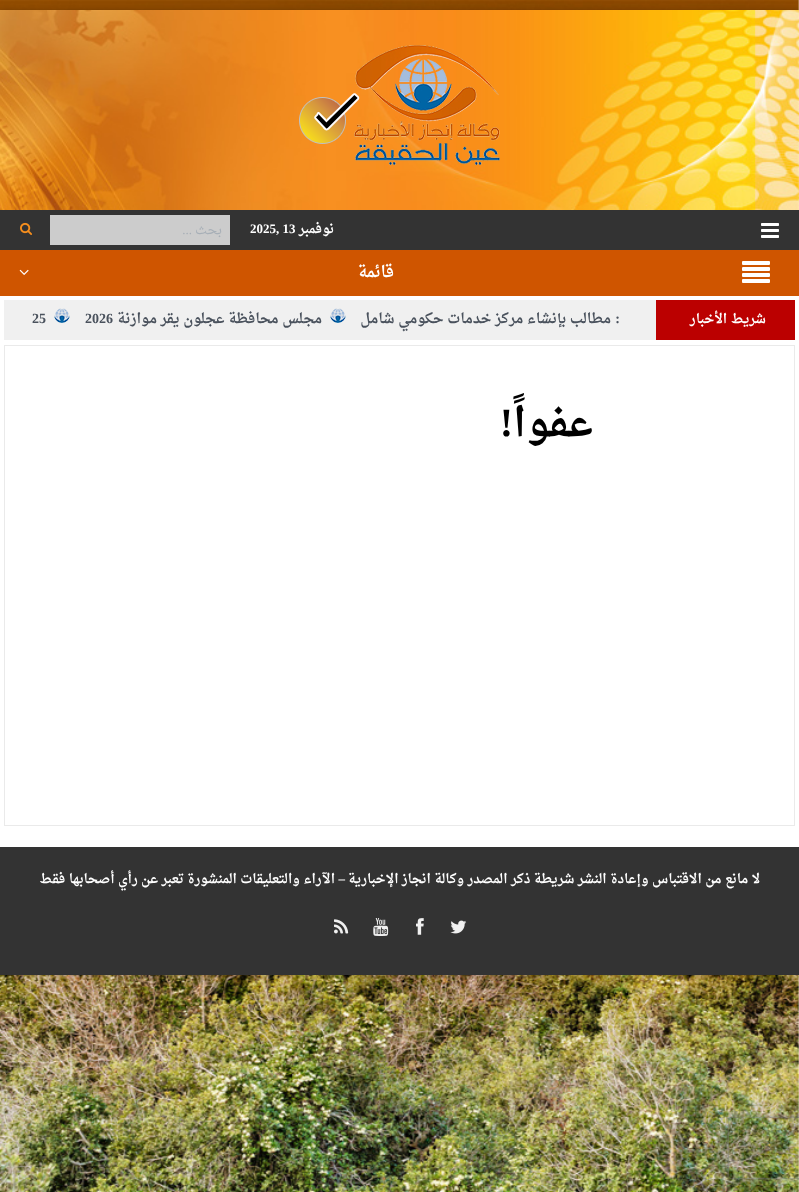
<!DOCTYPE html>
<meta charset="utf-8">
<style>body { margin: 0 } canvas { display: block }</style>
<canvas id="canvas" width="799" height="1192"></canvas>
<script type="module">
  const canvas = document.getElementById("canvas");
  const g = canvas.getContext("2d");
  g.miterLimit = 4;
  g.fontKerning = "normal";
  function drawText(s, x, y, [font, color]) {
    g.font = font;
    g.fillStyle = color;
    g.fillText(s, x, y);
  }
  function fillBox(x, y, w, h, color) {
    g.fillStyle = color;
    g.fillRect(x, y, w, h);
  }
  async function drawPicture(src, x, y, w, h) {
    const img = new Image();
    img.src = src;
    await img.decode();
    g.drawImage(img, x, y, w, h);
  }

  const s1 = ["bold 13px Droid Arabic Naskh", "#FFFFFF"];
  const s2 = ["bold 13px Liberation Serif", "#FFFFFF"];
  const s3 = ["13px Droid Arabic Naskh", "#A7AFB7"];
  const s4 = ["13px Liberation Serif", "#A7AFB7"];
  const s5 = ["bold 16px Droid Arabic Naskh", "#FFFFFF"];
  const s6 = ["bold 14px Liberation Serif", "#4A525D"];
  const s7 = ["bold 14px Droid Arabic Naskh", "#4A525D"];
  const s8 = ["bold 40px Droid Arabic Naskh", "#000000"];
  const s9 = ["bold 40px Liberation Serif", "#000000"];

  fillBox(0, 0, 799, 1192, "#FFFFFF");
  await drawPicture("pic1.png", 0, 0, 799, 1192);
  g.fillStyle = "rgba(0, 0, 0, 0.2)";
  g.filter = "blur(2.5px)";
  g.beginPath();
  g.rect(0, 10, 799, 965);
  g.fill();
  g.filter = "none";
  fillBox(0, 296, 799, 551, "#FFFFFF");
  await drawPicture("pic2.png", 0, 10, 799, 200);
  await drawPicture("pic3.png", 299, 45, 201, 120);
  fillBox(0, 210, 799, 40, "#333333");
  await drawPicture("pic4.png", 761, 223, 18, 15);
  g.direction = "rtl";
  drawText("نوفمبر", 334, 233, s1);
  g.direction = "ltr";
  drawText("2025, 13", 250, 233, s2);
  fillBox(50, 215, 180, 30, "#CCCCCC");
  g.direction = "rtl";
  drawText("بحث", 222, 234, s3);
  drawText("...", 192, 234, s4);
  await drawPicture("pic5.png", 20, 222, 12, 13);
  fillBox(0, 250, 799, 46, "#CF5500");
  await drawPicture("pic6.png", 742, 261, 28, 22);
  drawText("قائمة", 394, 277, s5);
  await drawPicture("pic7.png", 19, 269, 10, 6);
  fillBox(656, 300, 139, 40, "#BB0000");
  drawText("شريط الأخبار", 766, 323, s1);
  fillBox(4, 300, 652, 40, "#F0F0F0");
  drawText(":", 620, 323, s6);
  drawText("مطالب بإنشاء مركز خدمات حكومي شامل", 611, 323, s7);
  await drawPicture("pic8.png", 330, 308, 16, 15);
  drawText("مجلس محافظة عجلون يقر موازنة", 322, 323, s7);
  g.direction = "ltr";
  drawText("2026", 85, 323, s6);
  await drawPicture("pic8.png", 54, 308, 16, 15);
  drawText("25", 32, 323, s6);
  g.strokeStyle = "#EAEAEA";
  g.strokeRect(4.5, 345.5, 790, 480);
  g.direction = "rtl";
  drawText("عفواً", 593, 436, s8);
  drawText("!", 513, 436, s9);
  fillBox(0, 847, 799, 128, "#333333");
  drawText("لا مانع من الاقتباس وإعادة النشر شريطة ذكر المصدر وكالة انجاز الإخبارية", 760, 883, s1);
  drawText("–", 345, 883, s2);
  drawText("الآراء والتعليقات المنشورة تعبر عن رأي أصحابها فقط", 335, 883, s1);
  await drawPicture("pic9.png", 450, 920, 17, 14);
  await drawPicture("pic10.png", 416, 918, 8, 17);
  await drawPicture("pic11.png", 373, 918, 16, 18);
  await drawPicture("pic12.png", 334, 919, 15, 15);
  g.save();
  g.beginPath();
  g.moveTo(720, 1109);
  g.lineTo(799, 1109);
  g.lineTo(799, 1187);
  g.lineTo(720, 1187);
  g.closePath();
  g.moveTo(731, 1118);
  g.lineTo(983, 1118);
  g.bezierCurveTo(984, 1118, 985, 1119, 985, 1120);
  g.lineTo(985, 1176);
  g.bezierCurveTo(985, 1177, 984, 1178, 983, 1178);
  g.lineTo(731, 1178);
  g.bezierCurveTo(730, 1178, 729, 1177, 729, 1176);
  g.lineTo(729, 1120);
  g.bezierCurveTo(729, 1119, 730, 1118, 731, 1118);
  g.closePath();
  g.clip("evenodd");
  g.fillStyle = "#808080";
  g.filter = "blur(2.5px)";
  g.beginPath();
  g.roundRect(729, 1118, 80, 60, 2);
  g.fill();
  g.filter = "none";
  g.restore();
</script>
